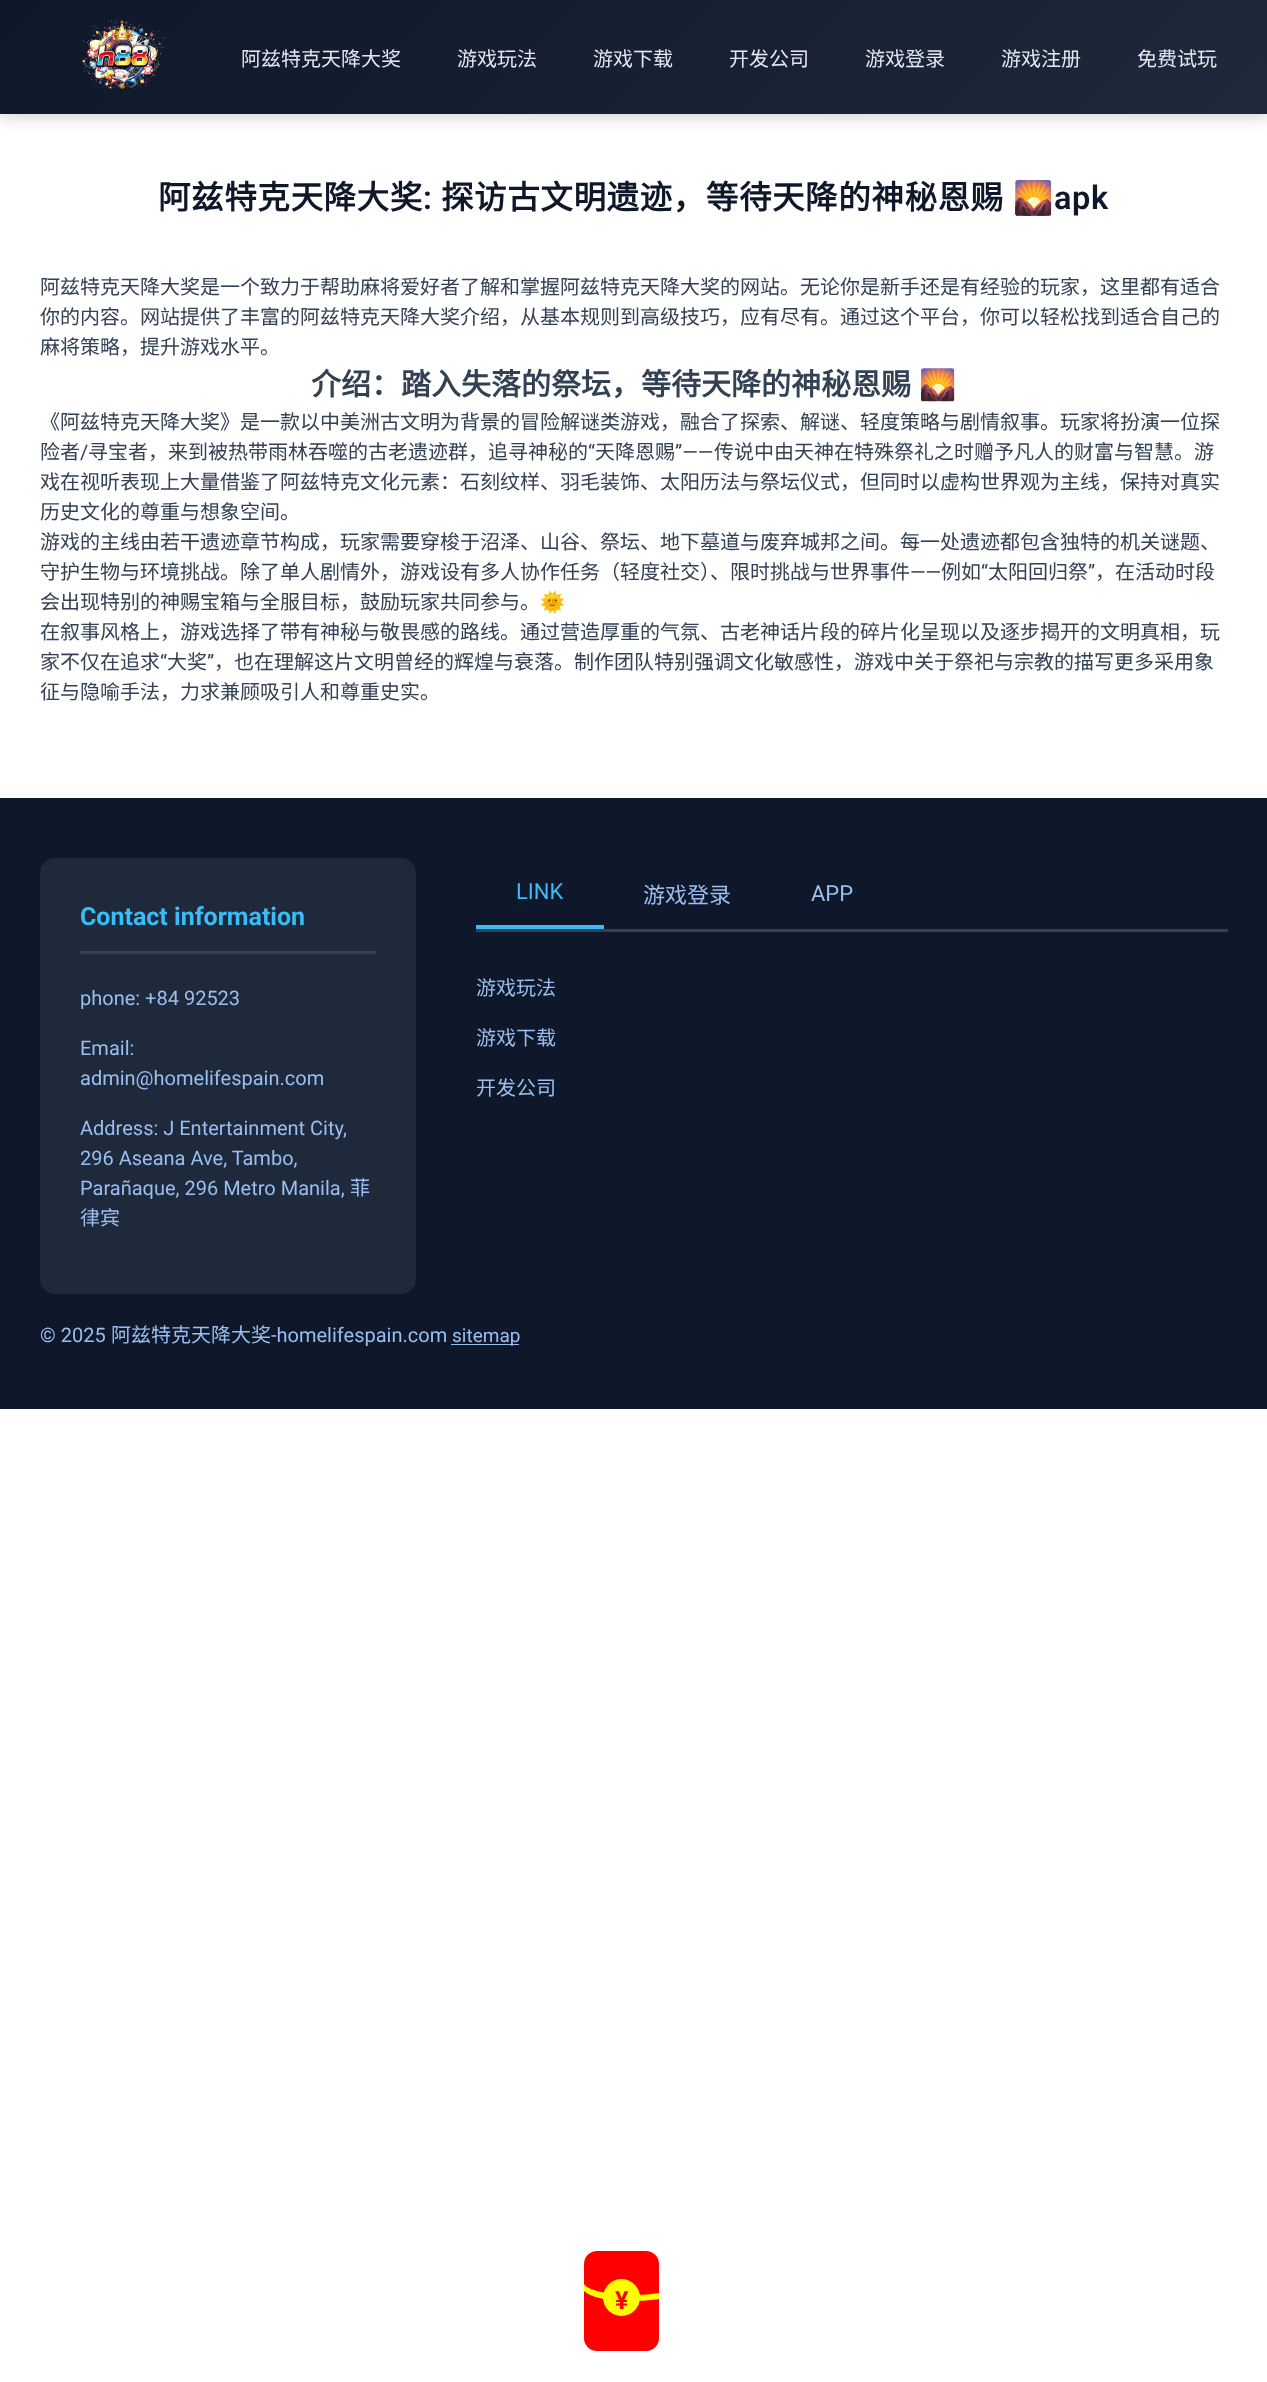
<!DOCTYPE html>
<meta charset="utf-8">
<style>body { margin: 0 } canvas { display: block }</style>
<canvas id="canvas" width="1267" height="2382"></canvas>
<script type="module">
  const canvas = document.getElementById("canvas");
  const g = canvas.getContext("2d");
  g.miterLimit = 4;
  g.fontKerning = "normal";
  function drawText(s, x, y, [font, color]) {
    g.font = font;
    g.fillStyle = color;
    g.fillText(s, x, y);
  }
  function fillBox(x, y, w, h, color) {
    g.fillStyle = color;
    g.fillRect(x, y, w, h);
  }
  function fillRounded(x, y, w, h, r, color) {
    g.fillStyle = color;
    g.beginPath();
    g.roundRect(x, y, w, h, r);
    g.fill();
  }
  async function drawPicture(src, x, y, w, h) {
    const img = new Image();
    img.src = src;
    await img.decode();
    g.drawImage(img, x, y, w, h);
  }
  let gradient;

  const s1 = ["20px Noto Sans CJK SC", "#E2E8F0"];
  const s2 = ["bold 32.5px Noto Sans CJK SC", "#0F172A"];
  const s3 = ["600 32.5px Roboto", "#0F172A"];
  const s4 = ["bold 32.5px Noto Color Emoji", "#0F172A"];
  const s5 = ["20px Noto Sans CJK SC", "#334155"];
  const s6 = ["bold 30px Noto Sans CJK SC", "#334155"];
  const s7 = ["bold 30px Noto Color Emoji", "#334155"];
  const s8 = ["20px Roboto", "#334155"];
  const s9 = ["20px Noto Color Emoji", "#334155"];
  const s10 = ["bold 25px Roboto", "#38BDF8"];
  const s11 = ["20px Roboto", "#99BEF0"];
  const s12 = ["20px Noto Sans CJK SC", "#99BEF0"];
  const s13 = ["22px Roboto", "#38BDF8"];
  const s14 = ["22px Noto Sans CJK SC", "#99BEF0"];
  const s15 = ["22px Roboto", "#99BEF0"];
  const s16 = ["19px Roboto", "#99BEF0"];
  const s17 = ["bold 25px Roboto", "#FF0000"];

  fillBox(0, 0, 1267, 2382, "#FFFFFF");
  g.fillStyle = "rgba(0, 0, 0, 0.15)";
  g.filter = "blur(7.5px)";
  g.beginPath();
  g.rect(0, 5, 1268, 114);
  g.fill();
  g.filter = "none";
  gradient = g.createLinearGradient(288, -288, 979, 402);
  gradient.addColorStop(0, "#0F172A");
  gradient.addColorStop(1, "#1E293B");
  g.fillStyle = gradient;
  g.fillRect(0, 0, 1267, 114);
  await drawPicture("pic1.png", 82, 20, 84, 69);
  drawText("阿兹特克天降大奖", 241, 66, s1);
  drawText("游戏玩法", 457, 66, s1);
  drawText("游戏下载", 593, 66, s1);
  drawText("开发公司", 729, 66, s1);
  drawText("游戏登录", 865, 66, s1);
  drawText("游戏注册", 1001, 66, s1);
  drawText("免费试玩", 1137, 66, s1);
  g.letterSpacing = "0.6px";
  drawText("阿兹特克天降大奖", 158, 209, s2);
  drawText(":", 423, 209, s3);
  drawText("探访古文明遗迹，等待天降的神秘恩赐", 441, 209, s2);
  drawText("🌄", 1013, 209, s4);
  drawText("apk", 1054, 209, s3);
  g.letterSpacing = "0px";
  drawText("阿兹特克天降大奖是一个致力于帮助麻将爱好者了解和掌握阿兹特克天降大奖的网站。无论你是新手还是有经验的玩家，这里都有适合", 40, 294, s5);
  drawText("你的内容。网站提供了丰富的阿兹特克天降大奖介绍，从基本规则到高级技巧，应有尽有。通过这个平台，你可以轻松找到适合自己的", 40, 324, s5);
  drawText("麻将策略，提升游戏水平。", 40, 354, s5);
  drawText("介绍：踏入失落的祭坛，等待天降的神秘恩赐", 311, 395, s6);
  drawText("🌄", 919, 395, s7);
  drawText("《阿兹特克天降大奖》是一款以中美洲古文明为背景的冒险解谜类游戏，融合了探索、解谜、轻度策略与剧情叙事。玩家将扮演一位探", 40, 429, s5);
  drawText("险者", 40, 459, s5);
  drawText("/", 80, 459, s8);
  drawText("寻宝者，来到被热带雨林吞噬的古老遗迹群，追寻神秘的", 88, 459, s5);
  drawText("“", 588, 459, s8);
  drawText("天降恩赐", 595, 459, s5);
  drawText("”——", 675, 459, s8);
  drawText("传说中由天神在特殊祭礼之时赠予凡人的财富与智慧。游", 714, 459, s5);
  drawText("戏在视听表现上大量借鉴了阿兹特克文化元素：石刻纹样、羽毛装饰、太阳历法与祭坛仪式，但同时以虚构世界观为主线，保持对真实", 40, 489, s5);
  drawText("历史文化的尊重与想象空间。", 40, 519, s5);
  drawText("游戏的主线由若干遗迹章节构成，玩家需要穿梭于沼泽、山谷、祭坛、地下墓道与废弃城邦之间。每一处遗迹都包含独特的机关谜题、", 40, 549, s5);
  drawText("守护生物与环境挑战。除了单人剧情外，游戏设有多人协作任务（轻度社交）、限时挑战与世界事件", 40, 579, s5);
  drawText("例如", 941, 579, s5);
  drawText("“", 981, 579, s8);
  drawText("太阳回归祭", 988, 579, s5);
  drawText("”", 1088, 579, s8);
  drawText("，在活动时段", 1095, 579, s5);
  drawText("——", 910, 579, s8);
  drawText("会出现特别的神赐宝箱与全服目标，鼓励玩家共同参与。", 40, 609, s5);
  drawText("🌞", 540, 609, s9);
  drawText("在叙事风格上，游戏选择了带有神秘与敬畏感的路线。通过营造厚重的气氛、古老神话片段的碎片化呈现以及逐步揭开的文明真相，玩", 40, 639, s5);
  drawText("家不仅在追求", 40, 669, s5);
  drawText("“", 160, 669, s8);
  drawText("大奖", 167, 669, s5);
  drawText("”", 207, 669, s8);
  drawText("，也在理解这片文明曾经的辉煌与衰落。制作团队特别强调文化敏感性，游戏中关于祭祀与宗教的描写更多采用象", 214, 669, s5);
  drawText("征与隐喻手法，力求兼顾吸引人和尊重史实。", 40, 699, s5);
  fillBox(0, 798, 1267, 611, "#0F172A");
  fillRounded(40, 858, 376, 436, 15, "#1E293B");
  fillBox(80, 951, 296, 3, "#334155");
  drawText("Contact information", 80, 925, s10);
  drawText("phone: +84 92523", 80, 1005, s11);
  drawText("Email:", 80, 1055, s11);
  drawText("admin@homelifespain.com", 80, 1085, s11);
  drawText("Address: J Entertainment City,", 80, 1135, s11);
  drawText("296 Aseana Ave, Tambo,", 80, 1165, s11);
  drawText("Parañaque, 296 Metro Manila,", 80, 1195, s11);
  drawText("菲", 350, 1195, s12);
  drawText("律宾", 80, 1225, s12);
  fillBox(476, 929, 752, 3, "#334155");
  fillBox(476, 925, 128, 4, "#38BDF8");
  drawText("LINK", 516, 899, s13);
  drawText("游戏登录", 643, 903, s14);
  drawText("APP", 811, 901, s15);
  drawText("游戏玩法", 476, 995, s12);
  drawText("游戏下载", 476, 1045, s12);
  drawText("开发公司", 476, 1095, s12);
  drawText("© 2025", 40, 1342, s11);
  drawText("阿兹特克天降大奖", 111, 1342, s12);
  drawText("-homelifespain.com", 271, 1342, s11);
  fillBox(451, 1344, 68, 1, "#99BEF0");
  drawText("sitemap", 452, 1342, s16);
  fillRounded(584, 2251, 75, 100, 13, "#FF0000");
  g.fillStyle = "#FFFF00";
  g.beginPath();
  g.moveTo(584, 2284);
  g.lineTo(584, 2291);
  g.bezierCurveTo(597, 2303, 640, 2302, 659, 2299);
  g.lineTo(659, 2293);
  g.bezierCurveTo(652, 2294, 643, 2295, 634, 2295);
  g.bezierCurveTo(608, 2295, 587, 2290, 584, 2284);
  g.closePath();
  g.fill();
  g.beginPath();
  g.arc(621.5, 2297.5, 18.5, 0, Math.PI * 2);
  g.fill();
  drawText("¥", 615, 2309, s17);
</script>
